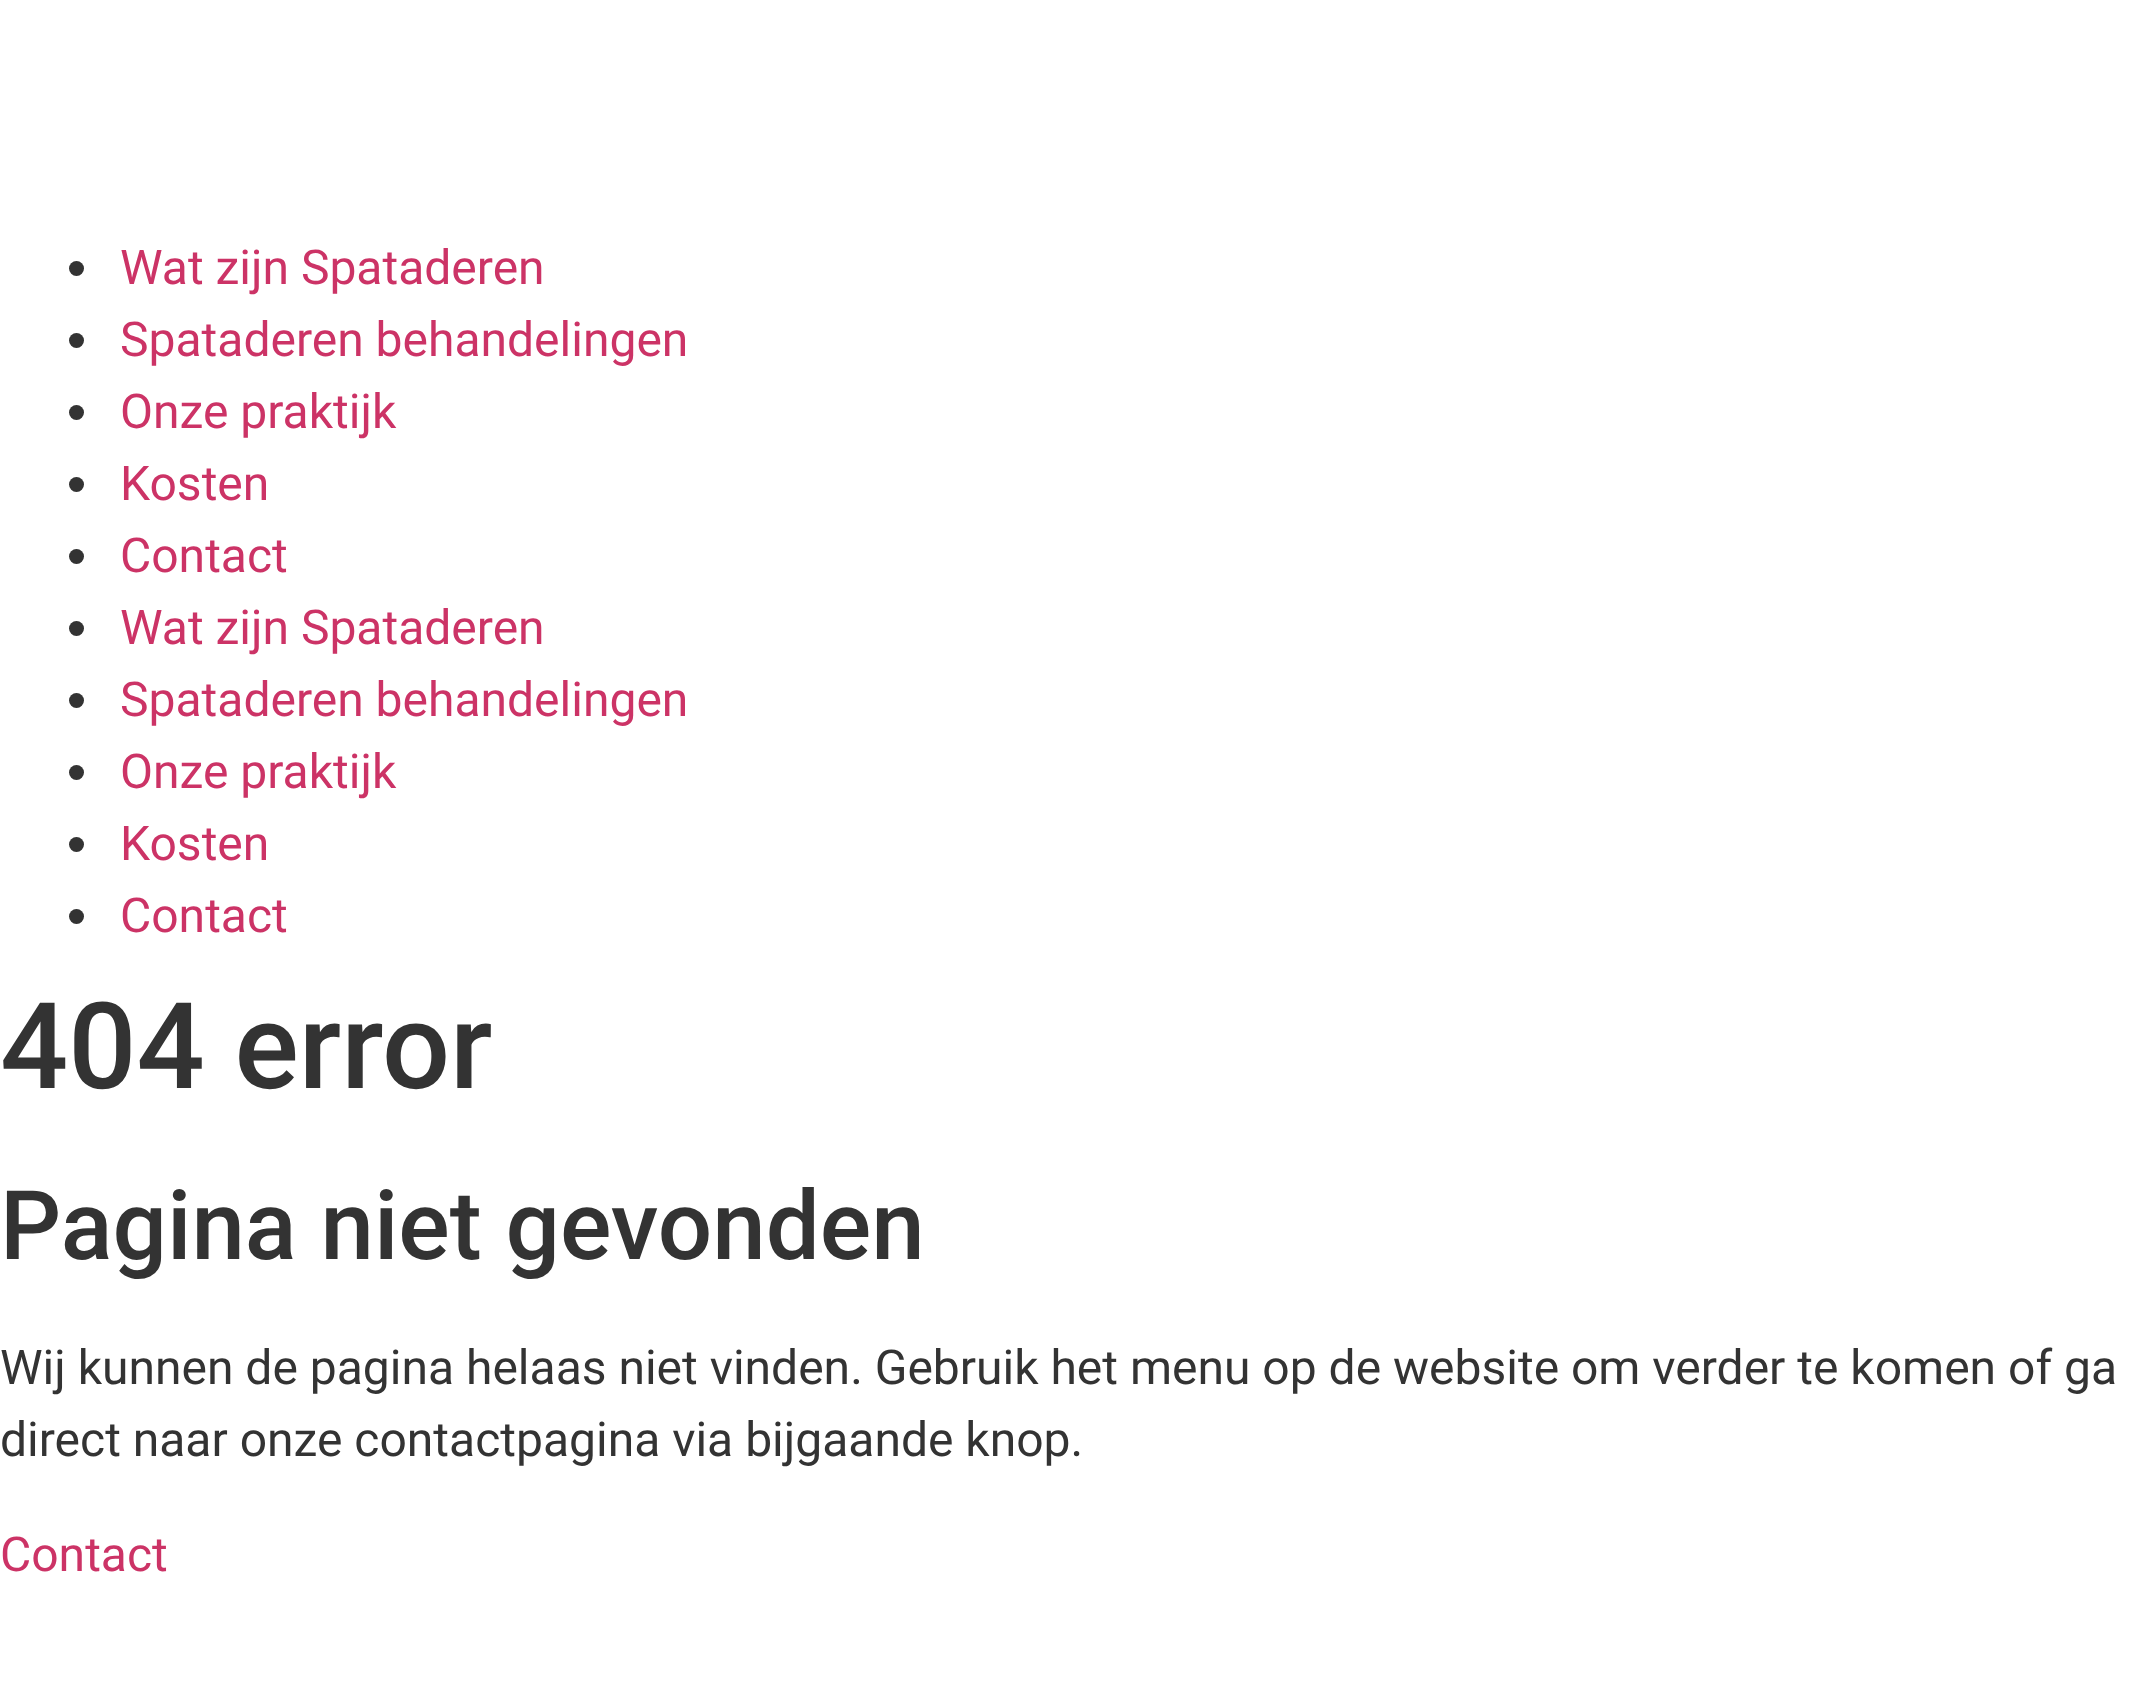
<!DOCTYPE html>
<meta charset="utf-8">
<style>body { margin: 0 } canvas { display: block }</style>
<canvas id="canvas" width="2140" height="1701"></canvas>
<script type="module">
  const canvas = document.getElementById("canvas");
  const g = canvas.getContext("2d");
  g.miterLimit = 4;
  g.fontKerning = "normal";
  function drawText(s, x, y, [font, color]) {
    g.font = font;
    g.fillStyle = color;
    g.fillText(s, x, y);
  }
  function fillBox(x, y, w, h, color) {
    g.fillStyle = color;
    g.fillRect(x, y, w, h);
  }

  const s1 = ["48px Roboto", "#CC3366"];
  const s2 = ["500 120px Roboto", "#333333"];
  const s3 = ["500 96px Roboto", "#333333"];
  const s4 = ["48px Roboto", "#333333"];

  fillBox(0, 0, 2140, 1701, "#FFFFFF");
  g.fillStyle = "#333333";
  g.beginPath();
  g.arc(76.5, 268.5, 7.5, 0, Math.PI * 2);
  g.fill();
  drawText("Wat zijn Spataderen", 120, 284, s1);
  g.fillStyle = "#333333";
  g.beginPath();
  g.arc(76.5, 340.5, 7.5, 0, Math.PI * 2);
  g.fill();
  drawText("Spataderen behandelingen", 120, 356, s1);
  g.fillStyle = "#333333";
  g.beginPath();
  g.arc(76.5, 412.5, 7.5, 0, Math.PI * 2);
  g.fill();
  drawText("Onze praktijk", 120, 428, s1);
  g.fillStyle = "#333333";
  g.beginPath();
  g.arc(76.5, 484.5, 7.5, 0, Math.PI * 2);
  g.fill();
  drawText("Kosten", 120, 500, s1);
  g.fillStyle = "#333333";
  g.beginPath();
  g.arc(76.5, 556.5, 7.5, 0, Math.PI * 2);
  g.fill();
  drawText("Contact", 120, 572, s1);
  g.fillStyle = "#333333";
  g.beginPath();
  g.arc(76.5, 628.5, 7.5, 0, Math.PI * 2);
  g.fill();
  drawText("Wat zijn Spataderen", 120, 644, s1);
  g.fillStyle = "#333333";
  g.beginPath();
  g.arc(76.5, 700.5, 7.5, 0, Math.PI * 2);
  g.fill();
  drawText("Spataderen behandelingen", 120, 716, s1);
  g.fillStyle = "#333333";
  g.beginPath();
  g.arc(76.5, 772.5, 7.5, 0, Math.PI * 2);
  g.fill();
  drawText("Onze praktijk", 120, 788, s1);
  g.fillStyle = "#333333";
  g.beginPath();
  g.arc(76.5, 844.5, 7.5, 0, Math.PI * 2);
  g.fill();
  drawText("Kosten", 120, 860, s1);
  g.fillStyle = "#333333";
  g.beginPath();
  g.arc(76.5, 916.5, 7.5, 0, Math.PI * 2);
  g.fill();
  drawText("Contact", 120, 932, s1);
  drawText("404 error", 0, 1088, s2);
  drawText("Pagina niet gevonden", 0, 1259, s3);
  drawText("Wij kunnen de pagina helaas niet vinden. Gebruik het menu op de website om verder te komen of ga", 0, 1384, s4);
  drawText("direct naar onze contactpagina via bijgaande knop.", 0, 1456, s4);
  drawText("Contact", 0, 1571, s1);
</script>
